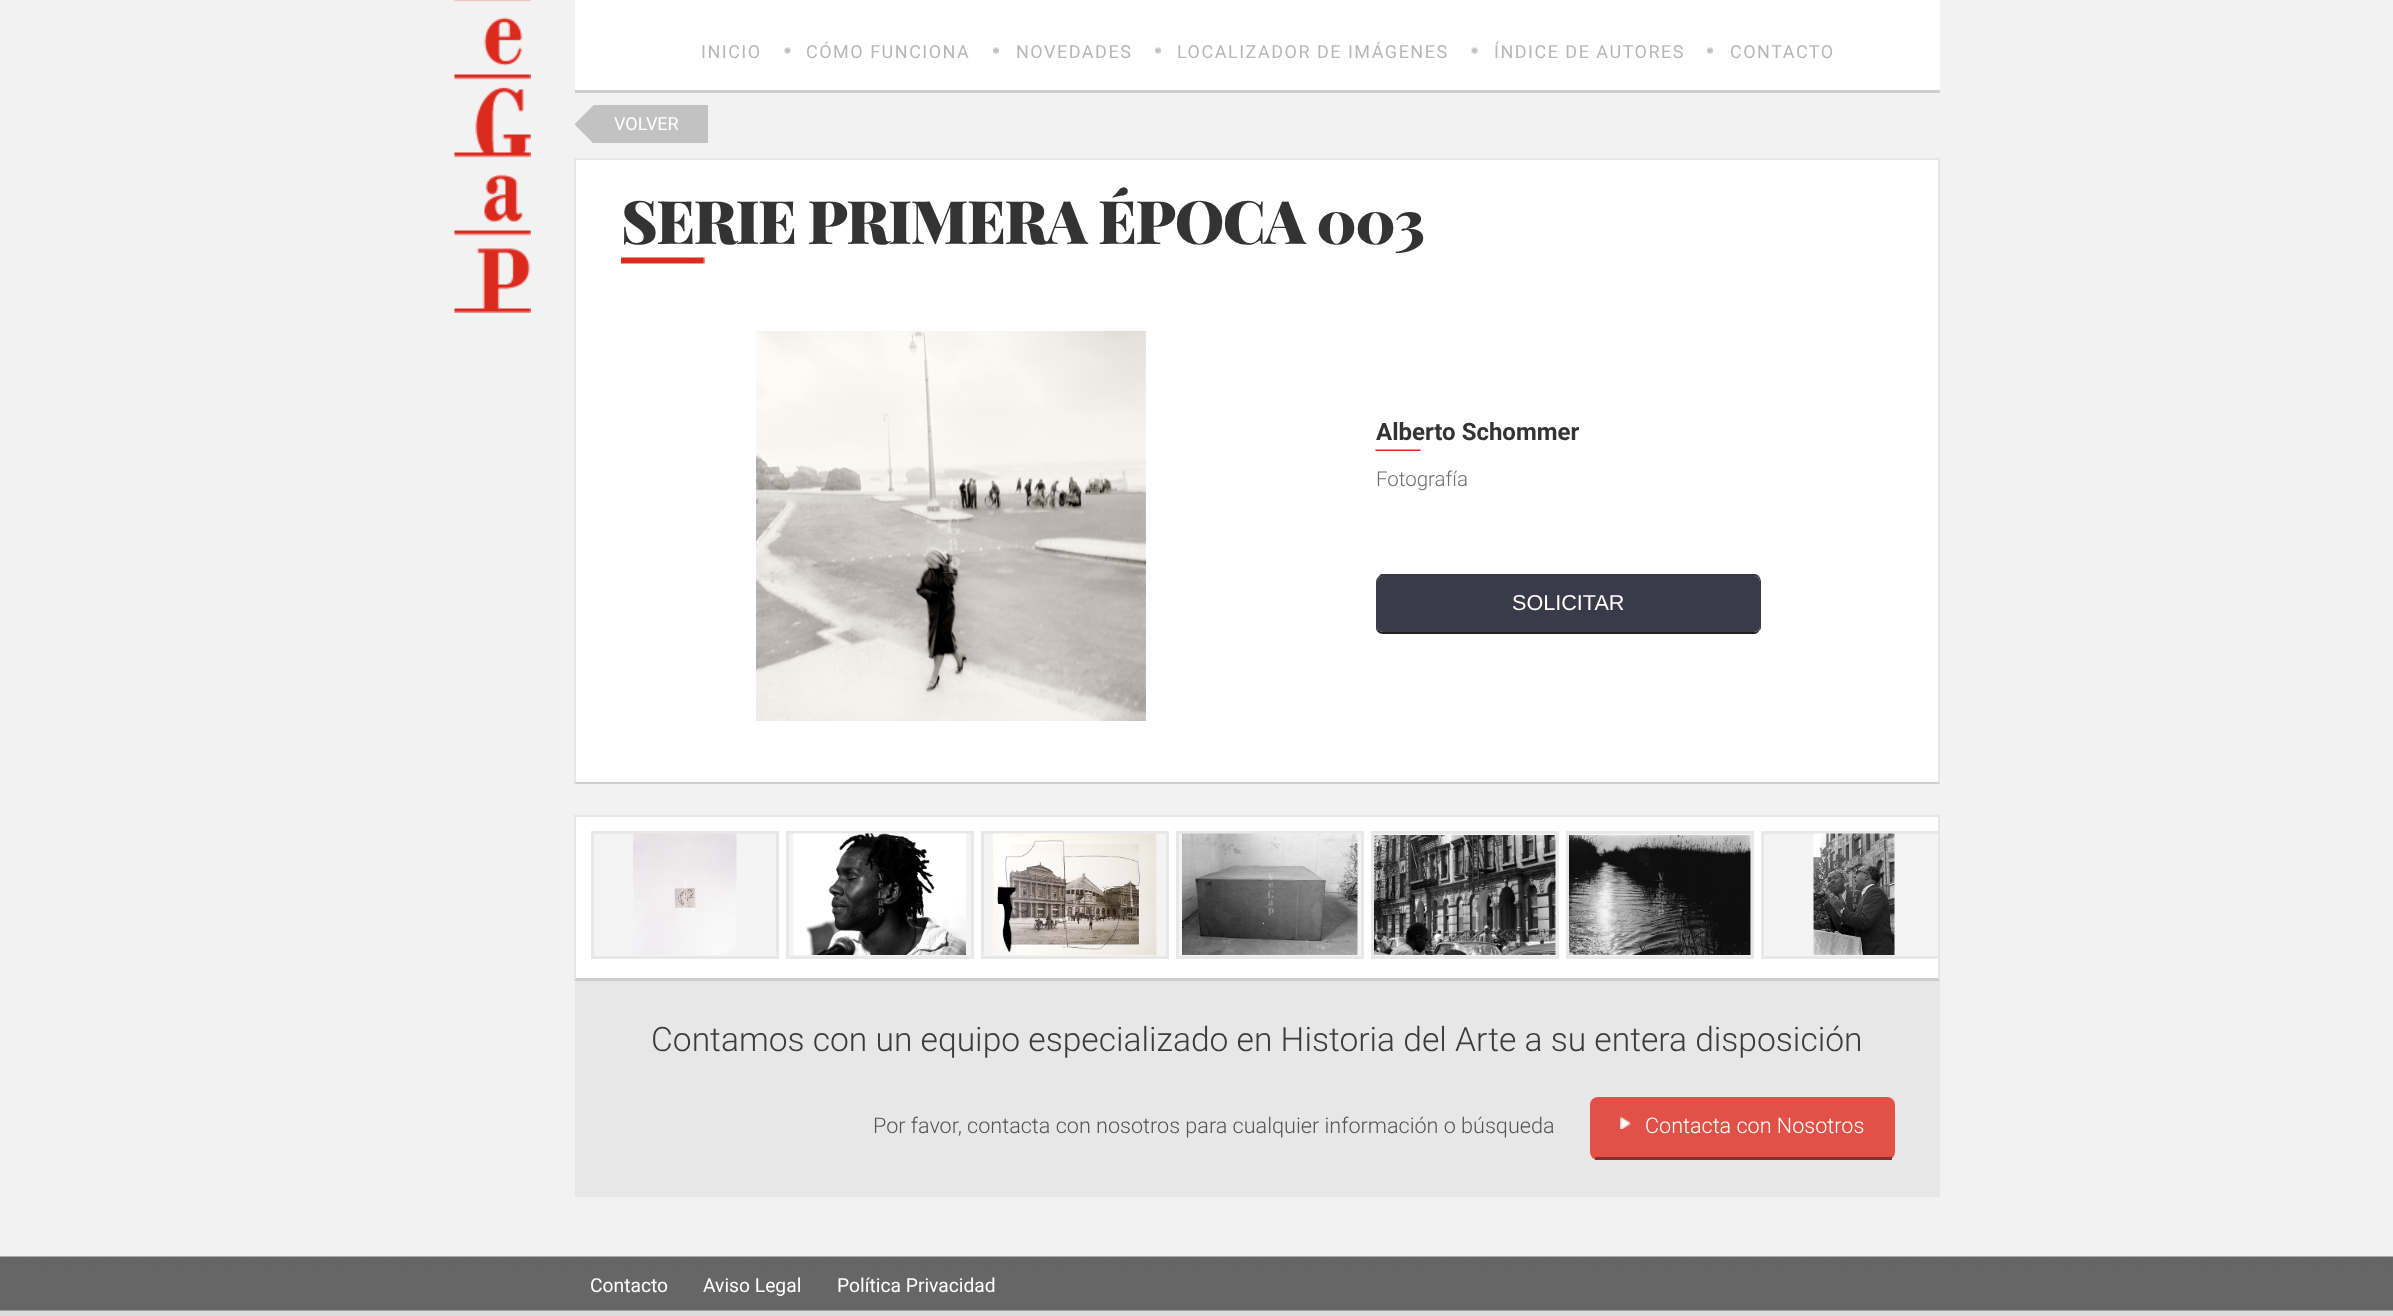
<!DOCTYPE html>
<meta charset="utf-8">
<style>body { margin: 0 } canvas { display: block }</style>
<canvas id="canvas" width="2393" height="1316"></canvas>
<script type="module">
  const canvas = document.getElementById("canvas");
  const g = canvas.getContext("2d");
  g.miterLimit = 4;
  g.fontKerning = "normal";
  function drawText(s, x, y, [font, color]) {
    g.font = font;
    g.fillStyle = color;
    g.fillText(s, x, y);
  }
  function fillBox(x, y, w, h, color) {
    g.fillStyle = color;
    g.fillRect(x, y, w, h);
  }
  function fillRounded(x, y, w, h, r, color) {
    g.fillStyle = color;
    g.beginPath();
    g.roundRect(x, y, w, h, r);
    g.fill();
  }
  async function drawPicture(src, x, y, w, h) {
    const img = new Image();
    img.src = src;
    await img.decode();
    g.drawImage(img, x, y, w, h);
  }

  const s1 = ["18px Roboto", "#B7B7B7"];
  const s2 = ["18px Roboto", "#FFFFFF"];
  const s3 = ["900 60px Playfair Display", "#333333"];
  const s4 = ["bold 24px Roboto", "#333333"];
  const s5 = ["300 20.5px Roboto", "#6E6E6E"];
  const s6 = ["21.6px Liberation Sans", "#FFFFFF"];
  const s7 = ["300 33.6px Roboto", "#3B3B3B"];
  const s8 = ["300 21.6px Roboto", "#545454"];
  const s9 = ["300 21.6px Roboto", "#FFFFFF"];
  const s10 = ["19.25px Roboto", "#FFFFFF"];

  fillBox(0, 0, 2393, 1316, "#F2F2F2");
  fillBox(575, 0, 1365, 90, "#FFFFFF");
  await drawPicture("pic1.png", 454, 0, 77, 313);
  fillBox(575, 90, 1365, 3, "#CECECE");
  g.letterSpacing = "1.5px";
  drawText("INICIO", 701, 58, s1);
  await drawPicture("pic2.png", 784, 47, 7, 7);
  drawText("CÓMO FUNCIONA", 806, 58, s1);
  await drawPicture("pic3.png", 993, 47, 6, 7);
  drawText("NOVEDADES", 1016, 58, s1);
  await drawPicture("pic4.png", 1155, 47, 6, 7);
  drawText("LOCALIZADOR DE IMÁGENES", 1177, 58, s1);
  await drawPicture("pic2.png", 1471, 47, 7, 7);
  drawText("ÍNDICE DE AUTORES", 1494, 58, s1);
  await drawPicture("pic3.png", 1707, 47, 6, 7);
  drawText("CONTACTO", 1730, 58, s1);
  fillBox(575, 105, 133, 38, "#C2C2C2");
  g.fillStyle = "#F2F2F2";
  g.beginPath();
  g.moveTo(555, 105);
  g.lineTo(594, 105);
  g.lineTo(574.5, 124.5);
  g.closePath();
  g.fill();
  g.fillStyle = "#C2C2C2";
  g.beginPath();
  g.moveTo(594, 105);
  g.lineTo(594, 144);
  g.lineTo(574.5, 124.5);
  g.closePath();
  g.fill();
  g.fillStyle = "#F2F2F2";
  g.beginPath();
  g.moveTo(594, 144);
  g.lineTo(555, 144);
  g.lineTo(574.5, 124.5);
  g.closePath();
  g.fill();
  fillBox(574, 124, 1, 1, "#F2F2F2");
  g.letterSpacing = "0px";
  drawText("VOLVER", 614, 130, s2);
  fillBox(576, 160, 1362, 622, "#FFFFFF");
  fillBox(575, 158, 1365, 2, "#E6E6E6");
  g.beginPath();
  g.moveTo(1940, 158);
  g.lineTo(1940, 784);
  g.lineTo(1938, 782);
  g.lineTo(1938, 159);
  g.closePath();
  g.fill();
  g.fillStyle = "#CECECE";
  g.beginPath();
  g.moveTo(1940, 784);
  g.lineTo(574, 784);
  g.lineTo(576, 782);
  g.lineTo(1938, 782);
  g.closePath();
  g.fill();
  g.fillStyle = "#E6E6E6";
  g.beginPath();
  g.moveTo(574, 784);
  g.lineTo(574, 158);
  g.lineTo(576, 159);
  g.lineTo(576, 782);
  g.closePath();
  g.fill();
  await drawPicture("pic5.png", 621, 257, 84, 7);
  g.letterSpacing = "-1.5px";
  drawText("SERIE PRIMERA ÉPOCA 003", 621, 244, s3);
  await drawPicture("pic6.png", 756, 331, 390, 390);
  await drawPicture("pic7.png", 1375, 449, 46, 2);
  g.letterSpacing = "0px";
  drawText("Alberto Schommer", 1376, 440, s4);
  drawText("Fotografía", 1376, 486, s5);
  g.fillStyle = "#3A3A4A";
  g.beginPath();
  g.moveTo(1383, 576);
  g.lineTo(1754, 576);
  g.bezierCurveTo(1757, 576, 1760, 579, 1760, 582);
  g.lineTo(1760, 627);
  g.bezierCurveTo(1760, 629, 1757, 632, 1754, 632);
  g.lineTo(1383, 632);
  g.bezierCurveTo(1380, 632, 1377, 629, 1377, 627);
  g.lineTo(1377, 582);
  g.bezierCurveTo(1377, 579, 1380, 576, 1383, 576);
  g.closePath();
  g.fill();
  g.beginPath();
  g.moveTo(1383, 576);
  g.bezierCurveTo(1382, 576, 1380, 577, 1379, 578);
  g.lineTo(1378, 577);
  g.lineTo(1381, 574);
  g.lineTo(1756, 574);
  g.lineTo(1759, 576);
  g.lineTo(1758, 578);
  g.bezierCurveTo(1757, 577, 1755, 576, 1754, 576);
  g.closePath();
  g.fill();
  g.beginPath();
  g.moveTo(1761, 627);
  g.lineTo(1761, 582);
  g.bezierCurveTo(1761, 580, 1760, 578, 1759, 576);
  g.lineTo(1758, 578);
  g.bezierCurveTo(1759, 579, 1760, 580, 1760, 582);
  g.lineTo(1760, 627);
  g.bezierCurveTo(1760, 628, 1759, 629, 1759, 630);
  g.lineTo(1759, 631);
  g.bezierCurveTo(1760, 630, 1761, 629, 1761, 627);
  g.closePath();
  g.fill();
  g.fillStyle = "#232323";
  g.beginPath();
  g.moveTo(1759, 631);
  g.bezierCurveTo(1758, 633, 1756, 634, 1754, 634);
  g.lineTo(1383, 634);
  g.bezierCurveTo(1381, 634, 1378, 633, 1377, 631);
  g.lineTo(1378, 629);
  g.bezierCurveTo(1379, 631, 1381, 632, 1383, 632);
  g.lineTo(1754, 632);
  g.bezierCurveTo(1756, 632, 1757, 631, 1759, 630);
  g.closePath();
  g.fill();
  g.fillStyle = "#3A3A4A";
  g.beginPath();
  g.moveTo(1377, 631);
  g.bezierCurveTo(1376, 630, 1376, 629, 1376, 627);
  g.lineTo(1376, 582);
  g.bezierCurveTo(1376, 580, 1377, 578, 1378, 577);
  g.lineTo(1379, 578);
  g.lineTo(1377, 581);
  g.lineTo(1377, 627);
  g.lineTo(1378, 629);
  g.closePath();
  g.fill();
  drawText("SOLICITAR", 1512, 610, s6);
  fillBox(576, 817, 1362, 161, "#FFFFFF");
  fillBox(575, 815, 1365, 2, "#E6E6E6");
  g.beginPath();
  g.moveTo(1940, 814);
  g.lineTo(1940, 981);
  g.lineTo(1938, 978);
  g.lineTo(1938, 816);
  g.closePath();
  g.fill();
  g.fillStyle = "#CECECE";
  g.beginPath();
  g.moveTo(1940, 981);
  g.lineTo(574, 981);
  g.lineTo(576, 978);
  g.lineTo(1938, 978);
  g.closePath();
  g.fill();
  g.fillStyle = "#E6E6E6";
  g.beginPath();
  g.moveTo(574, 981);
  g.lineTo(574, 814);
  g.lineTo(576, 816);
  g.lineTo(576, 978);
  g.closePath();
  g.fill();
  g.fillStyle = "#F4F4F4";
  g.beginPath();
  g.rect(592.5, 832.5, 185, 125);
  g.fill();
  g.strokeStyle = "#E8E8E8";
  g.lineWidth = 3;
  g.stroke();
  await drawPicture("pic8.png", 633, 833, 104, 122);
  g.beginPath();
  g.rect(787.5, 832.5, 185, 125);
  g.fill();
  g.stroke();
  await drawPicture("pic9.png", 793, 833, 173, 122);
  g.beginPath();
  g.rect(982.5, 832.5, 185, 125);
  g.fill();
  g.stroke();
  await drawPicture("pic10.png", 993, 833, 164, 122);
  g.beginPath();
  g.rect(1177.5, 832.5, 185, 125);
  g.fill();
  g.stroke();
  await drawPicture("pic11.png", 1182, 833, 176, 122);
  g.beginPath();
  g.rect(1372.5, 832.5, 185, 125);
  g.fill();
  g.stroke();
  await drawPicture("pic12.png", 1374, 835, 182, 120);
  g.beginPath();
  g.rect(1567.5, 832.5, 185, 125);
  g.fill();
  g.stroke();
  await drawPicture("pic13.png", 1569, 835, 182, 120);
  fillBox(1764, 834, 174, 122, "#F4F4F4");
  g.save();
  g.beginPath();
  g.rect(576, 816, 1362, 162);
  g.clip();
  g.strokeRect(1762.5, 832.5, 185, 125);
  g.restore();
  await drawPicture("pic14.png", 1813, 833, 82, 122);
  fillBox(575, 981, 1365, 216, "#E7E7E7");
  drawText("Contamos con un equipo especializado en Historia del Arte a su entera disposición", 651, 1051, s7);
  drawText("Por favor, contacta con nosotros para cualquier información o búsqueda", 873, 1133, s8);
  fillRounded(1590, 1097, 305, 63, 8, "#E25148");
  fillBox(1595, 1157, 297, 3, "#88312B");
  await drawPicture("pic15.png", 1620, 1117, 11, 12);
  drawText("Contacta con Nosotros", 1645, 1133, s9);
  await drawPicture("pic16.png", 0, 1256, 2393, 60);
  drawText("Contacto", 590, 1292, s10);
  drawText("Aviso Legal", 703, 1292, s10);
  drawText("Política Privacidad", 837, 1292, s10);
</script>
